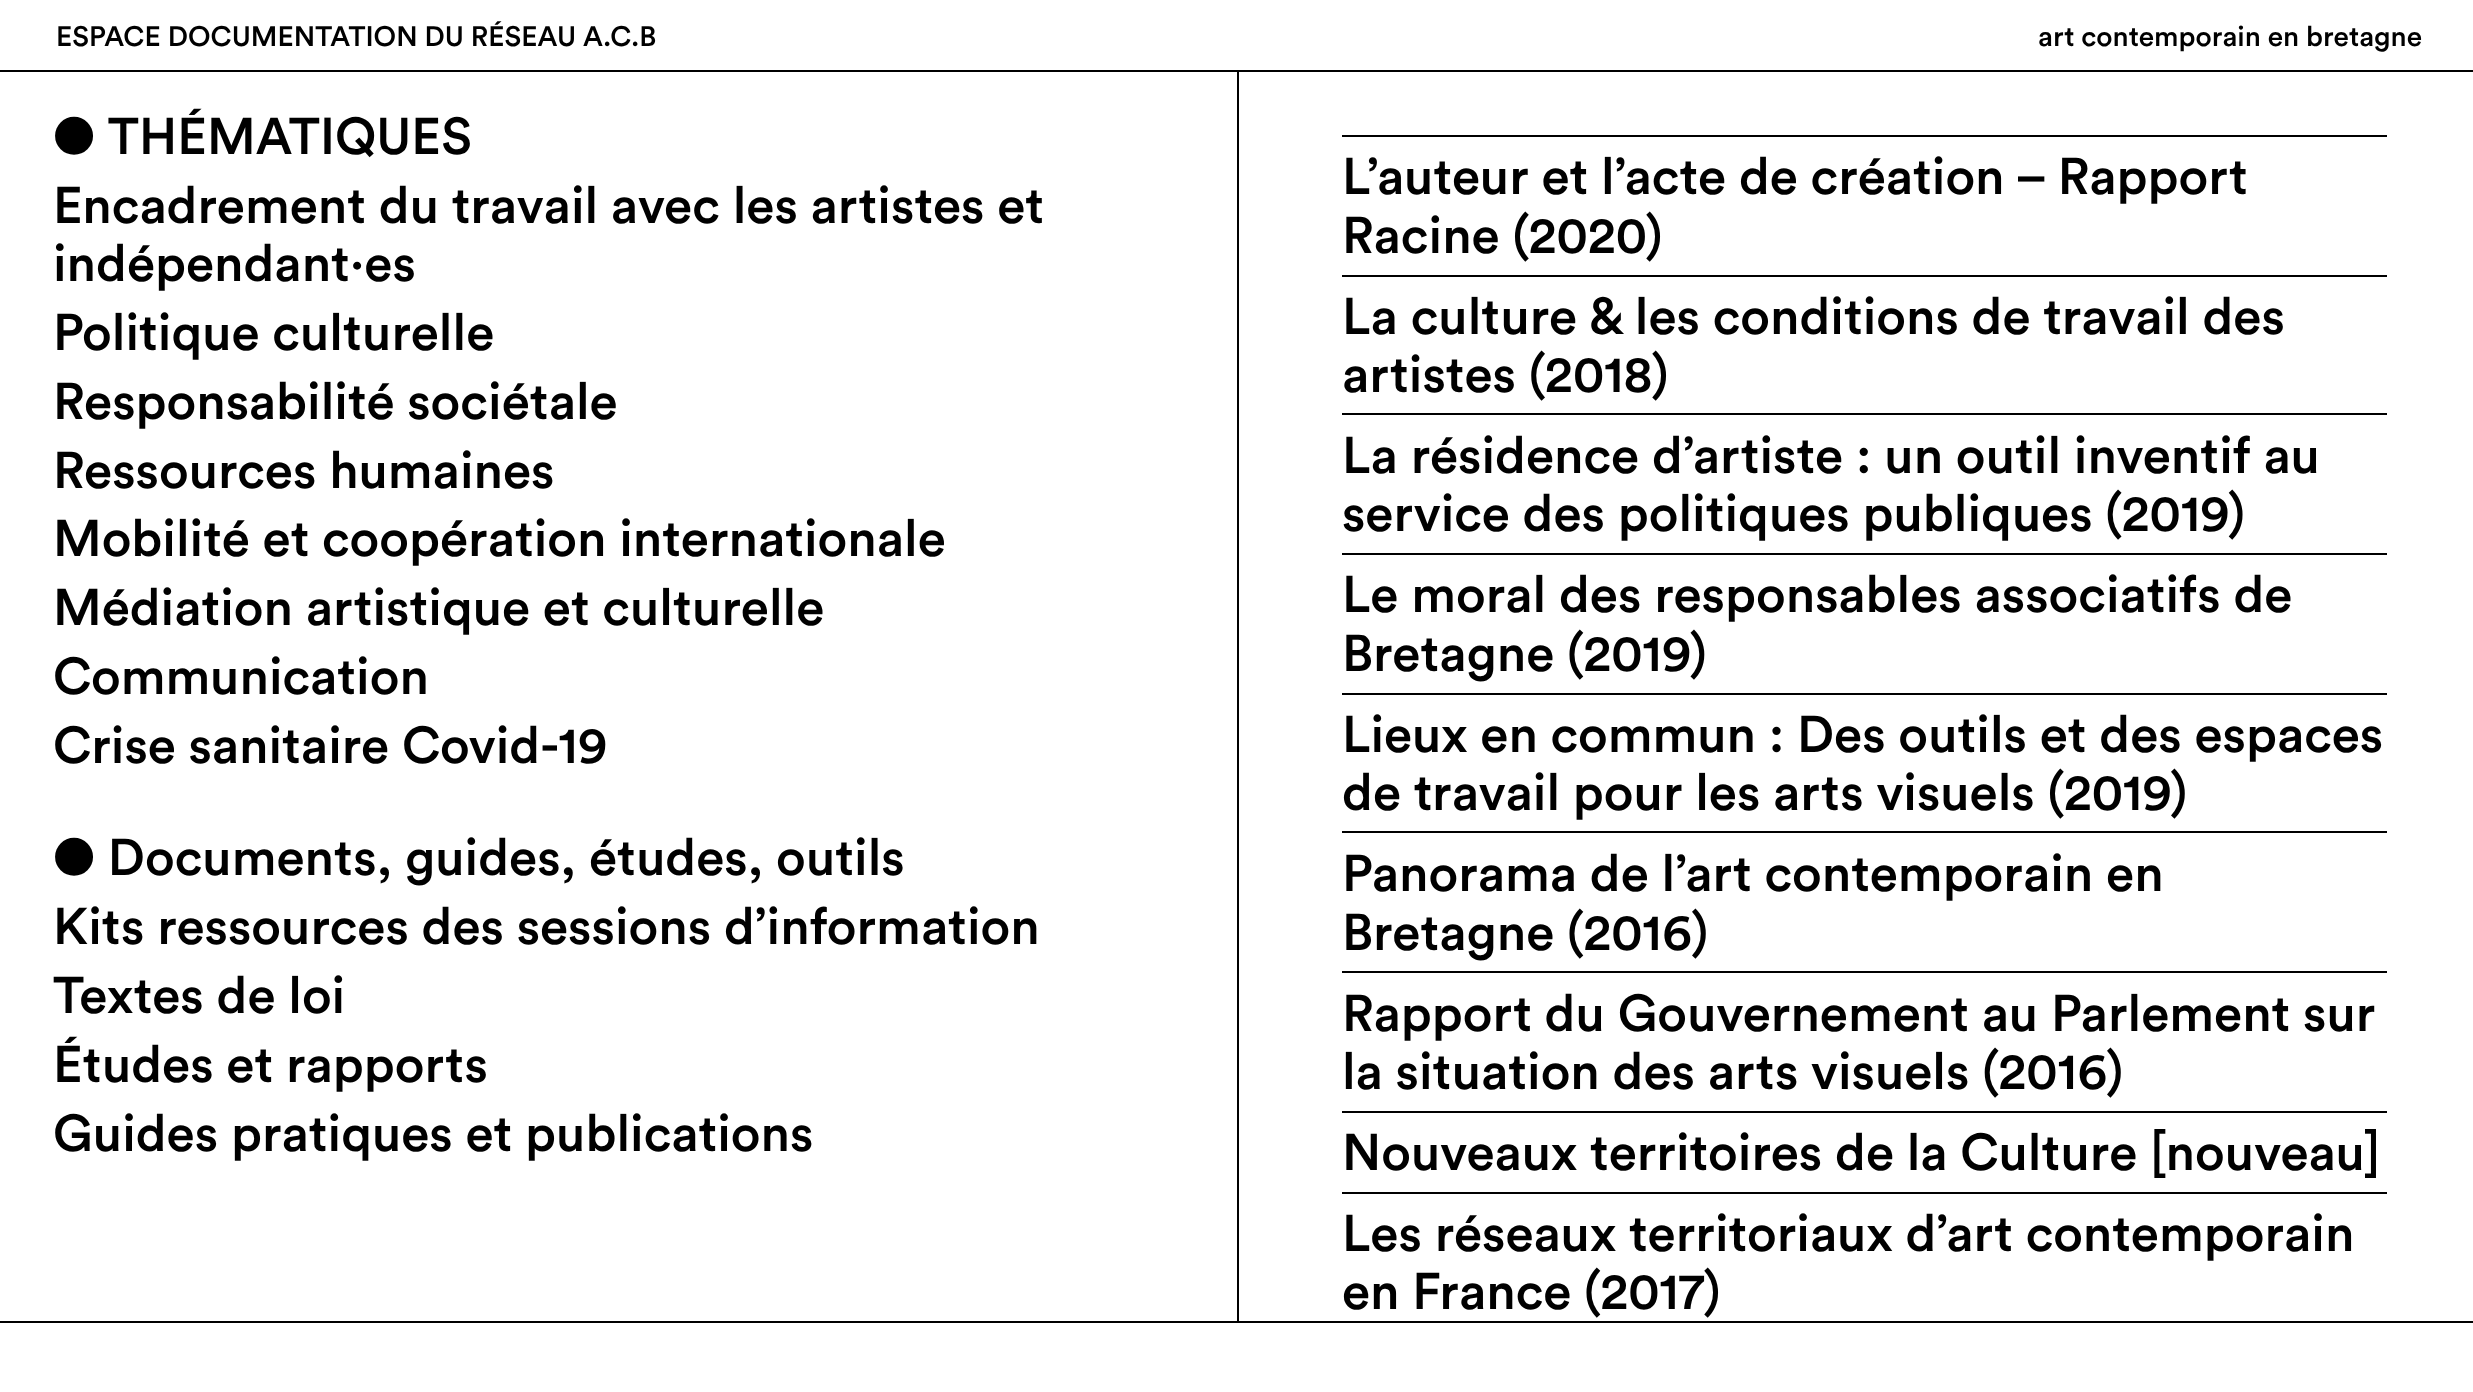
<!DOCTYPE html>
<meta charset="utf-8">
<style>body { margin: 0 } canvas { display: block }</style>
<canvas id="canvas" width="2473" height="1392"></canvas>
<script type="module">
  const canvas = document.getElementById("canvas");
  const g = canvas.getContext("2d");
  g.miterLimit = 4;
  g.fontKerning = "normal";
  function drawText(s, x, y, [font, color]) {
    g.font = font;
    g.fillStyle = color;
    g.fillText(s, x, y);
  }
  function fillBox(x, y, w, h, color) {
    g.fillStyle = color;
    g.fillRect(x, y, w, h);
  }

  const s1 = ["500 28px Circular", "#000000"];
  const s2 = ["500 51.3px Circular", "#000000"];

  fillBox(0, 0, 2473, 1392, "#FFFFFF");
  drawText("ESPACE DOCUMENTATION DU RÉSEAU A.C.B", 56, 46, s1);
  drawText("art contemporain en bretagne", 2038, 46, s1);
  fillBox(0, 70, 2473, 2, "#000000");
  fillBox(0, 1321, 2473, 2, "#000000");
  fillBox(1237, 72, 2, 1249, "#000000");
  drawText("● THÉMATIQUES", 53, 154, s2);
  drawText("Encadrement du travail avec les artistes et", 53, 223, s2);
  drawText("indépendant·es", 53, 281, s2);
  drawText("Politique culturelle", 53, 350, s2);
  drawText("Responsabilité sociétale", 53, 419, s2);
  drawText("Ressources humaines", 53, 488, s2);
  drawText("Mobilité et coopération internationale", 53, 556, s2);
  drawText("Médiation artistique et culturelle", 53, 625, s2);
  drawText("Communication", 53, 694, s2);
  drawText("Crise sanitaire Covid-19", 53, 763, s2);
  drawText("● Documents, guides, études, outils", 53, 875, s2);
  drawText("Kits ressources des sessions d’information", 53, 944, s2);
  drawText("Textes de loi", 53, 1013, s2);
  drawText("Études et rapports", 53, 1082, s2);
  drawText("Guides pratiques et publications", 53, 1151, s2);
  fillBox(1342, 135, 1045, 2, "#000000");
  drawText("L’auteur et l’acte de création – Rapport", 1342, 194, s2);
  drawText("Racine (2020)", 1342, 253, s2);
  fillBox(1342, 275, 1045, 2, "#000000");
  drawText("La culture & les conditions de travail des", 1342, 334, s2);
  drawText("artistes (2018)", 1342, 392, s2);
  fillBox(1342, 413, 1045, 2, "#000000");
  drawText("La résidence d’artiste : un outil inventif au", 1342, 473, s2);
  drawText("service des politiques publiques (2019)", 1342, 531, s2);
  fillBox(1342, 553, 1045, 2, "#000000");
  drawText("Le moral des responsables associatifs de", 1342, 612, s2);
  drawText("Bretagne (2019)", 1342, 671, s2);
  fillBox(1342, 693, 1045, 2, "#000000");
  drawText("Lieux en commun : Des outils et des espaces", 1342, 752, s2);
  drawText("de travail pour les arts visuels (2019)", 1342, 810, s2);
  fillBox(1342, 831, 1045, 2, "#000000");
  drawText("Panorama de l’art contemporain en", 1342, 891, s2);
  drawText("Bretagne (2016)", 1342, 950, s2);
  fillBox(1342, 971, 1045, 2, "#000000");
  drawText("Rapport du Gouvernement au Parlement sur", 1342, 1031, s2);
  drawText("la situation des arts visuels (2016)", 1342, 1089, s2);
  fillBox(1342, 1111, 1045, 2, "#000000");
  drawText("Nouveaux territoires de la Culture [nouveau]", 1342, 1170, s2);
  fillBox(1342, 1192, 1045, 2, "#000000");
  drawText("Les réseaux territoriaux d’art contemporain", 1342, 1251, s2);
  drawText("en France (2017)", 1342, 1309, s2);
</script>
